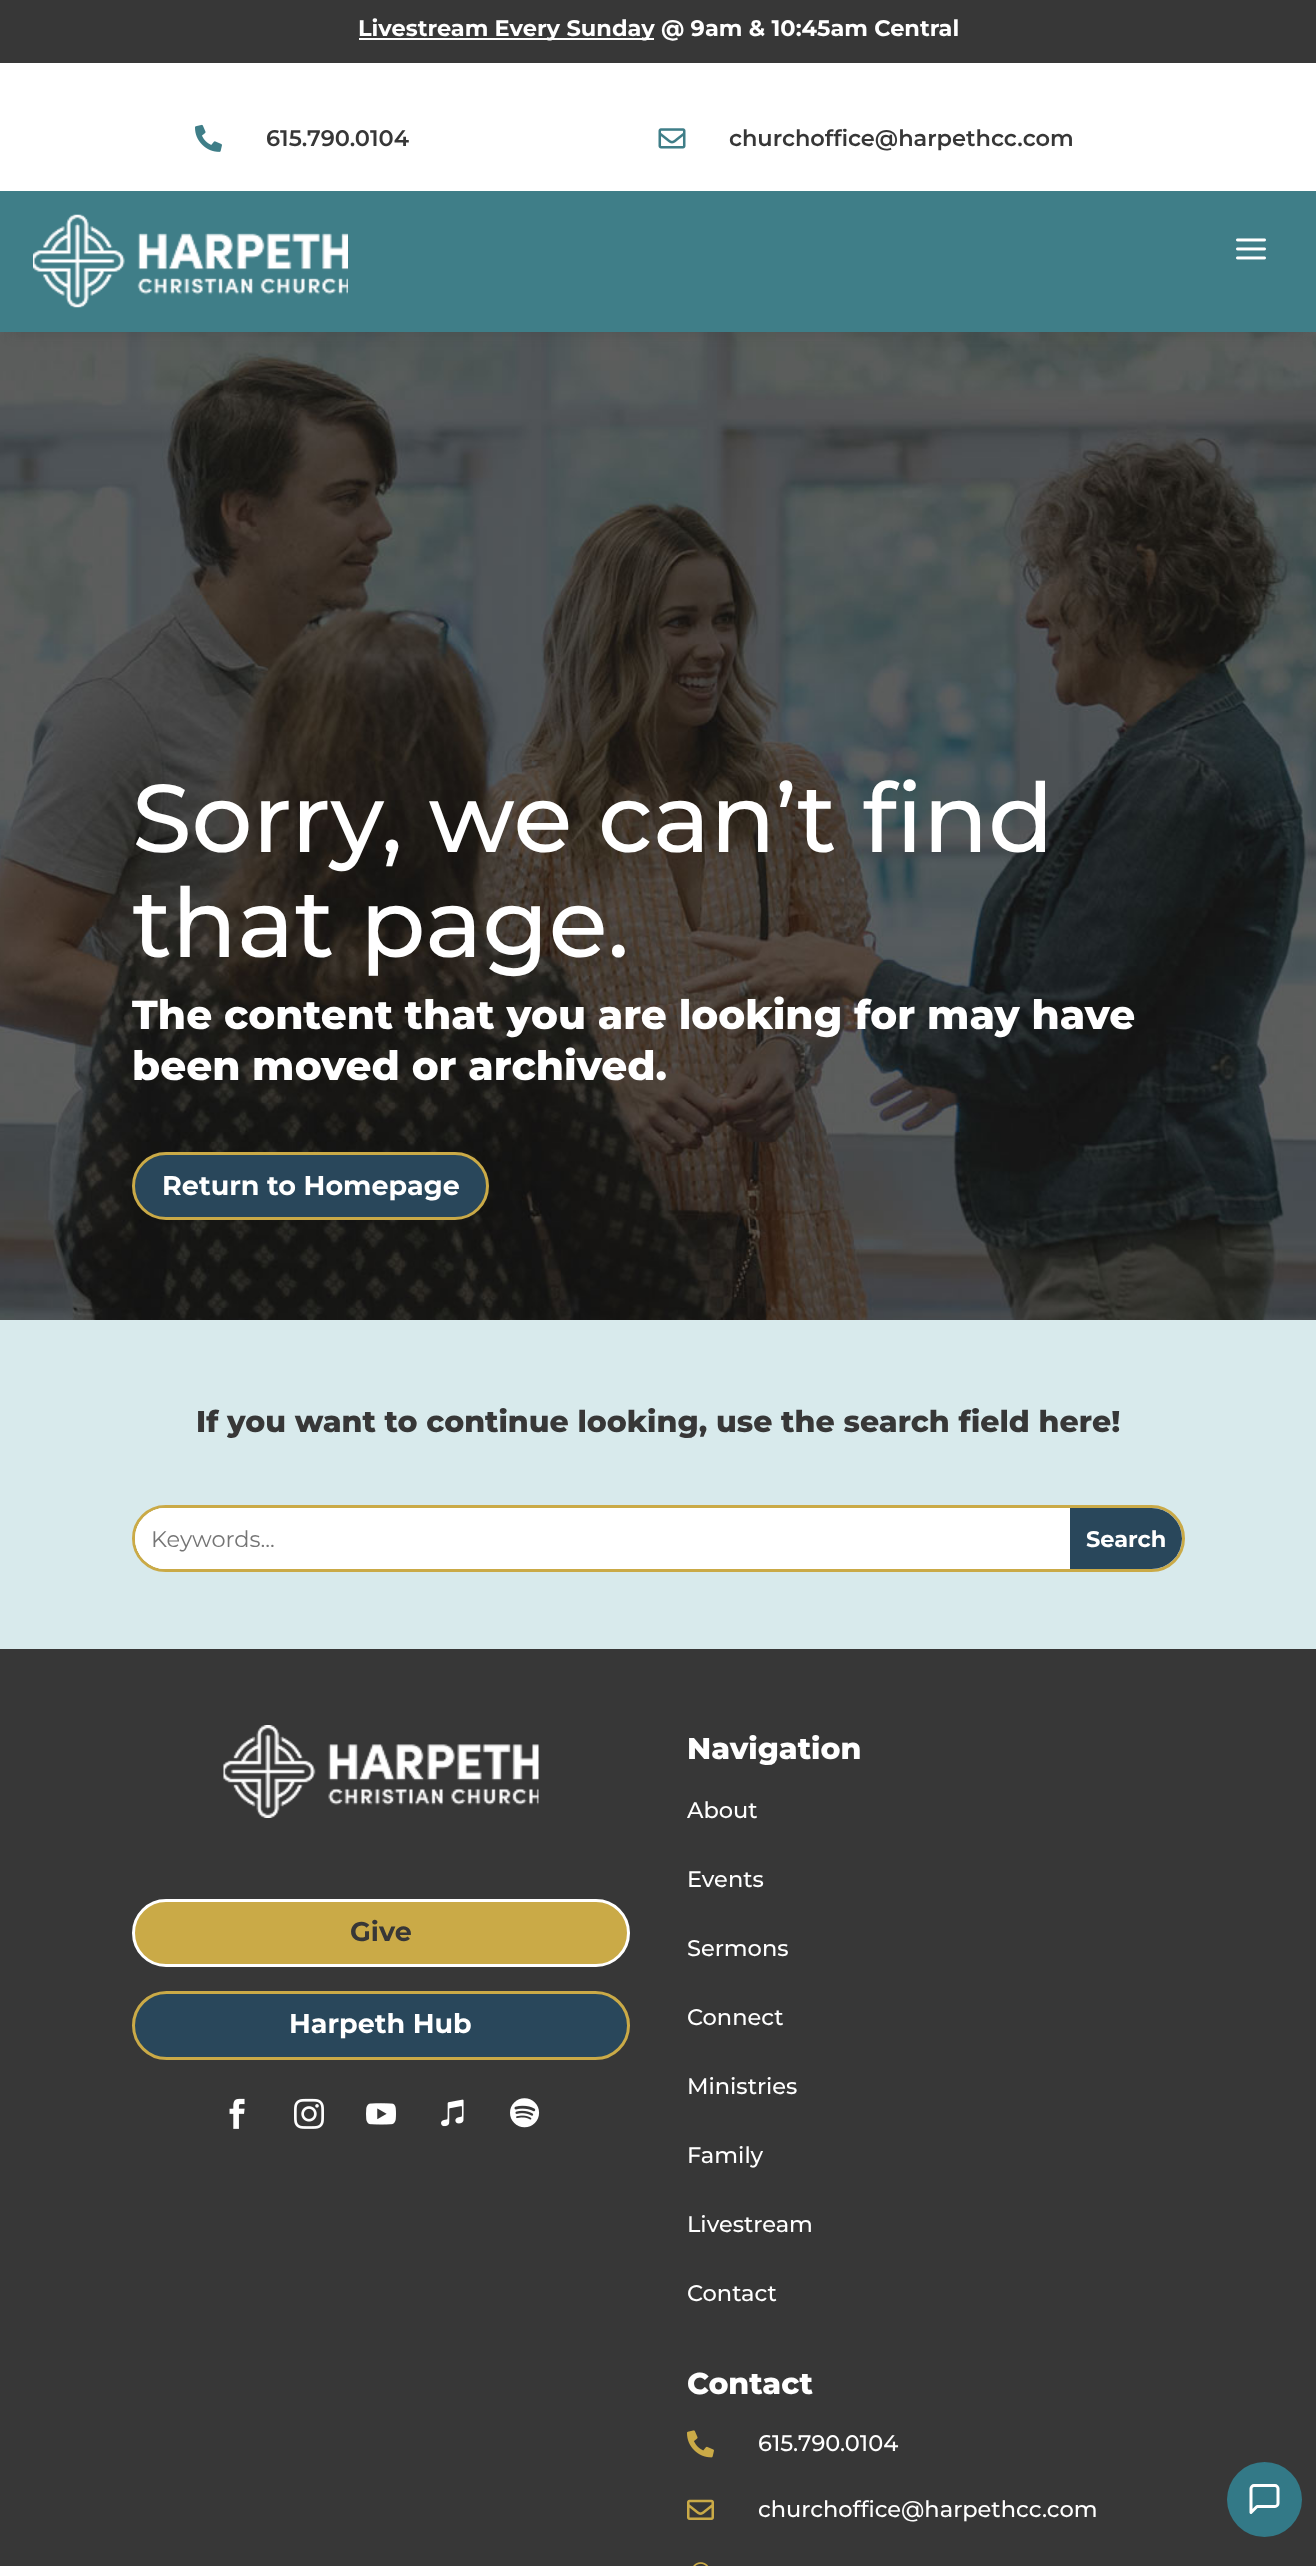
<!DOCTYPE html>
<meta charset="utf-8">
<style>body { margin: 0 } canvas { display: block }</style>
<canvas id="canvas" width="1316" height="2566"></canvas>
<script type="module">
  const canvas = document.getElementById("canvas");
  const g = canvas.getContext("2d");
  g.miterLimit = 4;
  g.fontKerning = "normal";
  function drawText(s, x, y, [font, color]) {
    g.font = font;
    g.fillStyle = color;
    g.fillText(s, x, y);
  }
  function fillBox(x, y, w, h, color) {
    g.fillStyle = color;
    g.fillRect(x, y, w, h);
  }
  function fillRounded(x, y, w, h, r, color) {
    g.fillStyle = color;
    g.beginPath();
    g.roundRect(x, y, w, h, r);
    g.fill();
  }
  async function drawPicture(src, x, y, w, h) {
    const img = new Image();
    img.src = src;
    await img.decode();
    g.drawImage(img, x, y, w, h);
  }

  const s1 = ["bold 22.5px Montserrat", "#FFFFFF"];
  const s2 = ["600 22.5px Montserrat", "#373737"];
  const s3 = ["500 96px Montserrat", "#FFFFFF"];
  const s4 = ["800 40.5px Montserrat", "#FFFFFF"];
  const s5 = ["bold 27px Montserrat", "#FFFFFF"];
  const s6 = ["800 30px Montserrat", "#373737"];
  const s7 = ["22.5px Montserrat", "#757575"];
  const s8 = ["bold 27px Montserrat", "#373737"];
  const s9 = ["800 30px Montserrat", "#FFFFFF"];
  const s10 = ["500 22.5px Montserrat", "#FFFFFF"];

  fillBox(0, 0, 1316, 2566, "#FFFFFF");
  fillBox(0, 0, 1316, 63, "#373737");
  fillBox(359, 38, 295, 2, "#FFFFFF");
  drawText("Livestream Every Sunday @ 9am & 10:45am Central", 358, 36, s1);
  await drawPicture("pic1.png", 195, 124, 27, 28);
  drawText("615.790.0104", 266, 146, s2);
  await drawPicture("pic2.png", 658, 128, 28, 21);
  drawText("churchoffice@harpethcc.com", 729, 146, s2);
  await drawPicture("pic5.png", 0, 332, 1316, 988);
  g.fillStyle = "rgba(55, 55, 55, 0.2)";
  g.filter = "blur(6px)";
  g.beginPath();
  g.rect(9, 212, 1299, 123);
  g.fill();
  g.filter = "none";
  fillBox(0, 191, 1316, 141, "#3F7E88");
  await drawPicture("pic3.png", 33, 214, 315, 94);
  await drawPicture("pic4.png", 1236, 238, 30, 22);
  drawText("Sorry, we can’t find", 132, 852, s3);
  drawText("that page.", 132, 957, s3);
  drawText("The content that you are looking for may have", 132, 1029, s4);
  drawText("been moved or archived.", 132, 1080, s4);
  g.fillStyle = "#29475B";
  g.beginPath();
  g.roundRect(133.5, 1153.5, 354, 65, 32.5);
  g.fill();
  g.strokeStyle = "#CAAA47";
  g.lineWidth = 3;
  g.stroke();
  drawText("Return to Homepage", 162, 1195, s5);
  fillBox(0, 1320, 1316, 329, "#D8EAEC");
  drawText("If you want to continue looking, use the search field here!", 196, 1432, s6);
  g.beginPath();
  g.roundRect(133.5, 1506.5, 1050, 64, 32);
  g.stroke();
  fillRounded(135, 1508, 1047, 61, 30.5, "#FFFFFF");
  fillRounded(135, 1508, 935, 61, 30.5, "#FFFFFF");
  drawText("Keywords...", 151, 1547, s7);
  g.fillStyle = "#29475B";
  g.beginPath();
  g.roundRect(1070, 1508, 112, 61, [0, 30.5, 30.5, 0]);
  g.fill();
  drawText("Search", 1086, 1547, s1);
  fillBox(0, 1649, 1316, 917, "#373737");
  await drawPicture("pic6.png", 223, 1725, 316, 93);
  g.fillStyle = "#CAAA47";
  g.beginPath();
  g.roundRect(133.5, 1900.5, 495, 65, 32.5);
  g.fill();
  g.strokeStyle = "#FFFFFF";
  g.stroke();
  drawText("Give", 350, 1941, s8);
  g.fillStyle = "#29475B";
  g.beginPath();
  g.roundRect(133.5, 1992.5, 495, 66, 33);
  g.fill();
  g.strokeStyle = "#CAAA47";
  g.stroke();
  drawText("Harpeth Hub", 289, 2033, s5);
  await drawPicture("pic7.png", 229, 2098, 16, 31);
  await drawPicture("pic8.png", 294, 2098, 30, 31);
  await drawPicture("pic9.png", 366, 2103, 30, 22);
  await drawPicture("pic10.png", 441, 2099, 23, 28);
  await drawPicture("pic11.png", 510, 2098, 30, 30);
  drawText("Navigation", 687, 1759, s9);
  drawText("About", 687, 1818, s10);
  drawText("Events", 687, 1887, s10);
  drawText("Sermons", 687, 1956, s10);
  drawText("Connect", 687, 2025, s10);
  drawText("Ministries", 687, 2094, s10);
  drawText("Family", 687, 2163, s10);
  drawText("Livestream", 687, 2232, s10);
  drawText("Contact", 687, 2301, s10);
  drawText("Contact", 687, 2394, s9);
  await drawPicture("pic12.png", 687, 2430, 27, 28);
  drawText("615.790.0104", 758, 2451, s10);
  await drawPicture("pic13.png", 687, 2499, 27, 21);
  drawText("churchoffice@harpethcc.com", 758, 2517, s10);
  await drawPicture("pic14.png", 693, 2562, 16, 4);
  g.fillStyle = "#337987";
  g.beginPath();
  g.arc(1264.5, 2499.5, 37.5, 0, Math.PI * 2);
  g.fill();
  g.beginPath();
  g.moveTo(1278, 2503.5);
  g.bezierCurveTo(1278, 2505, 1276.5, 2506.5, 1275, 2506.5);
  g.lineTo(1257, 2506.5);
  g.lineTo(1251, 2512.5);
  g.lineTo(1251, 2488.5);
  g.bezierCurveTo(1251, 2487, 1252.5, 2485.5, 1254, 2485.5);
  g.lineTo(1275, 2485.5);
  g.bezierCurveTo(1276.5, 2485.5, 1278, 2487, 1278, 2488.5);
  g.closePath();
  g.strokeStyle = "#FFFFFF";
  g.lineCap = "round";
  g.lineJoin = "round";
  g.stroke();
</script>
